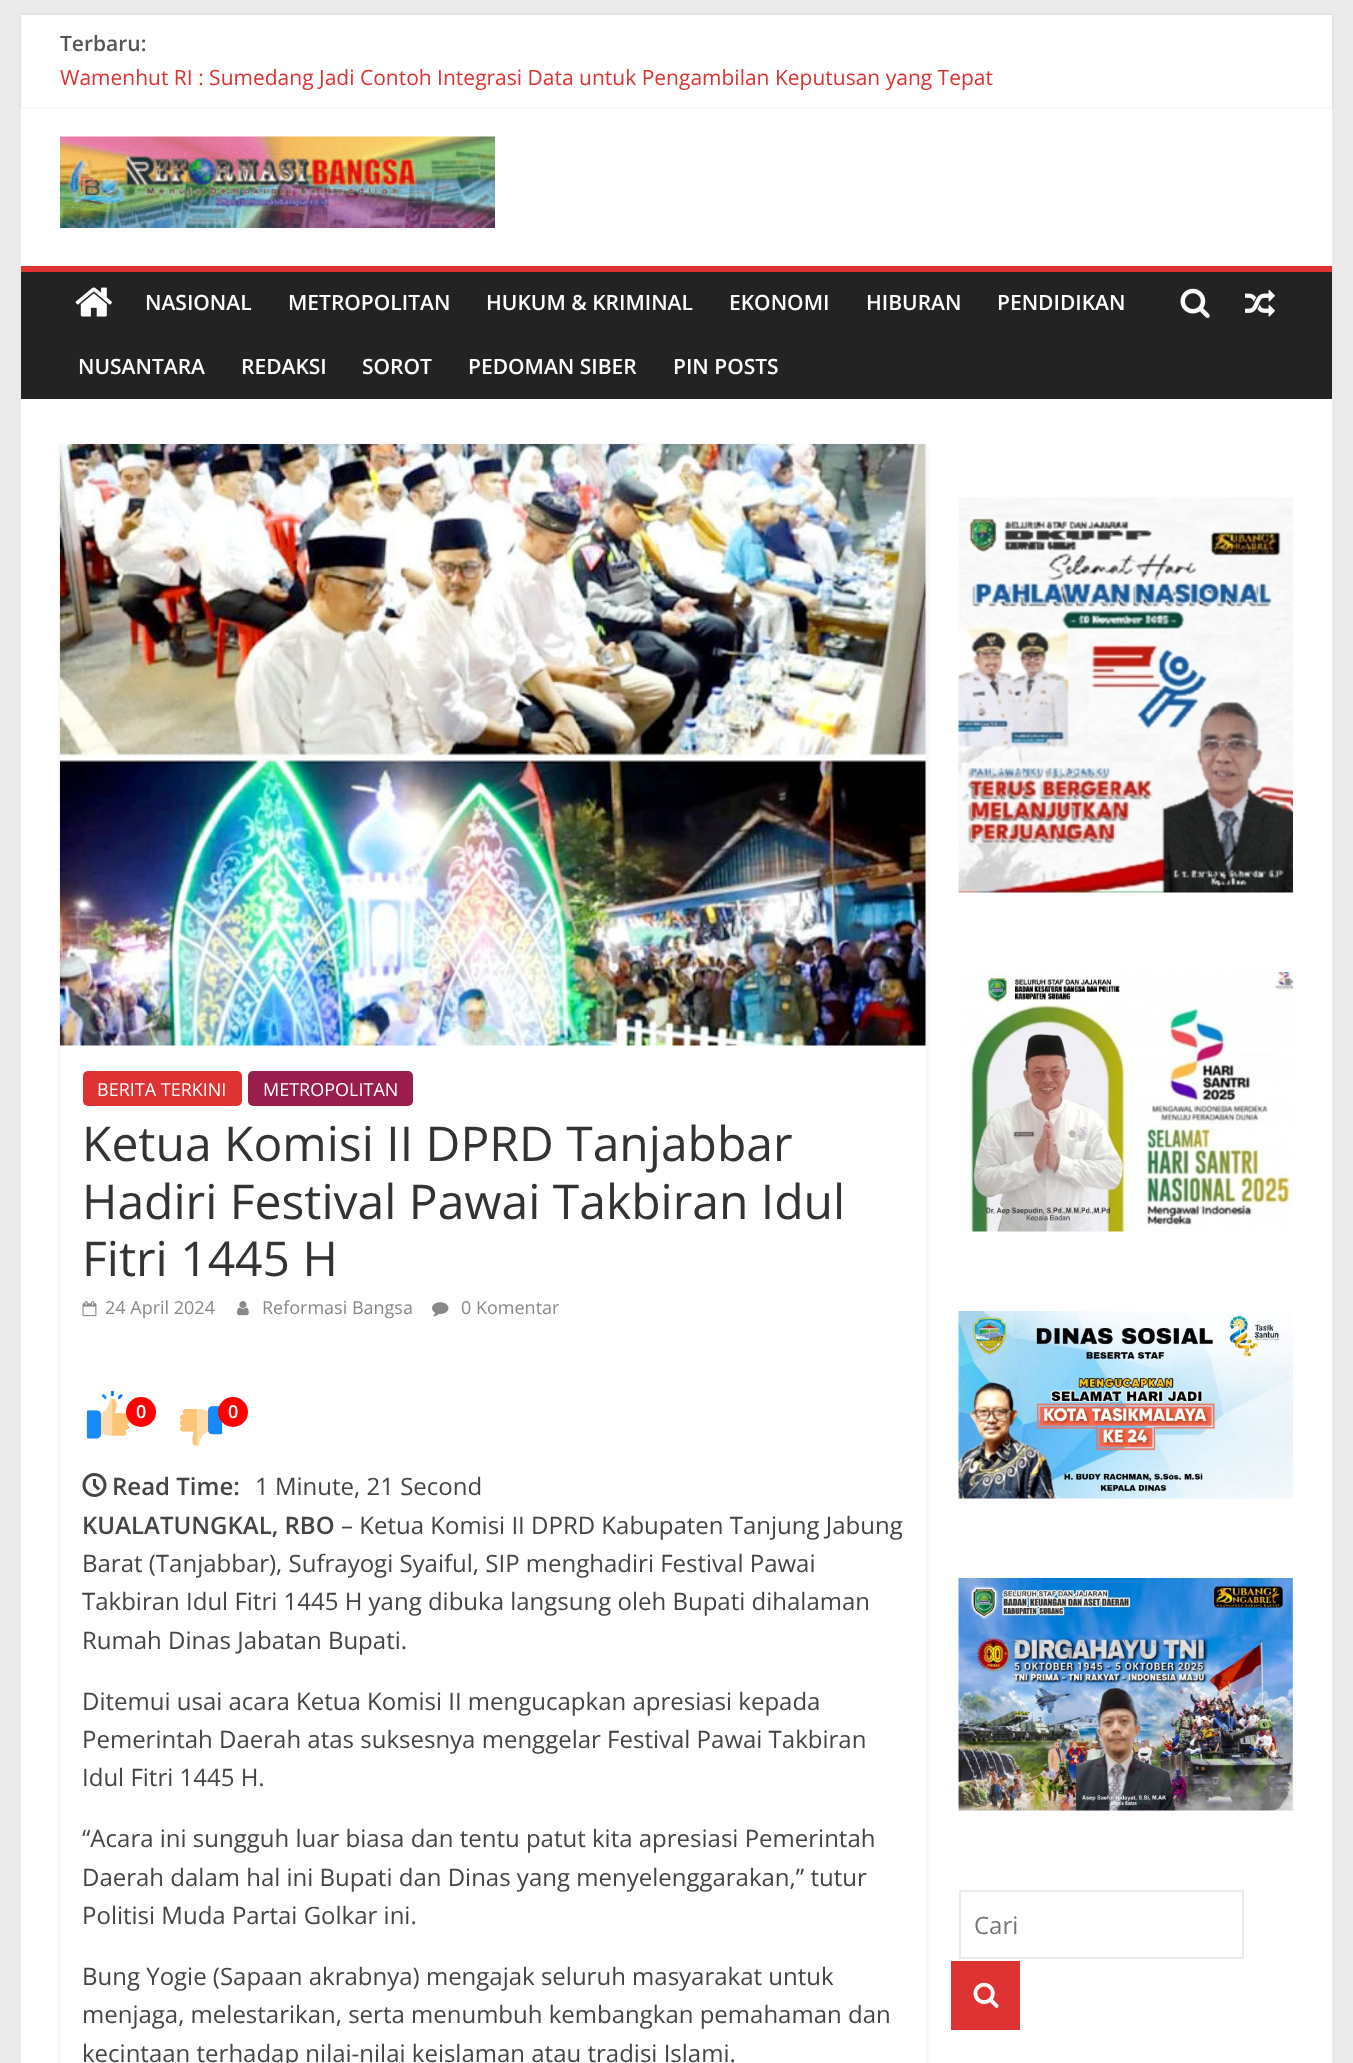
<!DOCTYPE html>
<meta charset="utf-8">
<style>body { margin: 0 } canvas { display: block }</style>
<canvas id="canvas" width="1353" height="2063"></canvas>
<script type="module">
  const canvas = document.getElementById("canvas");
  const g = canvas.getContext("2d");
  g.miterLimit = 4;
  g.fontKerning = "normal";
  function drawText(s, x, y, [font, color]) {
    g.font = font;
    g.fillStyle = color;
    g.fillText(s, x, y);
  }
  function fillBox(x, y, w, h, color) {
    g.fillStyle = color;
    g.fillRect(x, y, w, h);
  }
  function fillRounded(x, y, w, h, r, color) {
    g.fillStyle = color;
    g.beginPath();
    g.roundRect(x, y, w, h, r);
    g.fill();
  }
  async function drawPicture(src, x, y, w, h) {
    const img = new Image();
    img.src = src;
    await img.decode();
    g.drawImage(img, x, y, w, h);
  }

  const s1 = ["600 21px Open Sans", "#555555"];
  const s2 = ["21px Open Sans", "#DD3333"];
  const s3 = ["600 21px Open Sans", "#FFFFFF"];
  const s4 = ["18px Open Sans", "#FFFFFF"];
  const s5 = ["48px Open Sans", "#333333"];
  const s6 = ["18px Open Sans", "#888888"];
  const s7 = ["600 18px Open Sans", "#FFFFFF"];
  const s8 = ["600 24px Open Sans", "#444444"];
  const s9 = ["24px Open Sans", "#444444"];
  const s10 = ["24px Open Sans", "#757575"];

  fillBox(0, 0, 1353, 2063, "#EAEAEA");
  fillBox(21, 107, 1311, 159, "#FFFFFF");
  g.fillStyle = "rgba(0, 0, 0, 0.1)";
  g.filter = "blur(1.5px)";
  g.beginPath();
  g.rect(21, 15, 1311, 92);
  g.fill();
  g.filter = "none";
  fillBox(21, 15, 1311, 92, "#FFFFFF");
  drawText("Terbaru:", 60, 51, s1);
  drawText("Wamenhut RI : Sumedang Jadi Contoh Integrasi Data untuk Pengambilan Keputusan yang Tepat", 60, 85, s2);
  await drawPicture("pic1.png", 60, 136, 435, 92);
  fillBox(21, 272, 1311, 127, "#232323");
  fillBox(21, 266, 1311, 6, "#DD3333");
  await drawPicture("pic2.png", 75, 287, 37, 30);
  await drawPicture("pic3.png", 1180, 288, 30, 30);
  await drawPicture("pic4.png", 1245, 289, 30, 28);
  drawText("NASIONAL", 145, 310, s3);
  drawText("METROPOLITAN", 288, 310, s3);
  drawText("HUKUM & KRIMINAL", 486, 310, s3);
  drawText("EKONOMI", 729, 310, s3);
  drawText("HIBURAN", 866, 310, s3);
  drawText("PENDIDIKAN", 997, 310, s3);
  drawText("NUSANTARA", 78, 374, s3);
  drawText("REDAKSI", 241, 374, s3);
  drawText("SOROT", 362, 374, s3);
  drawText("PEDOMAN SIBER", 468, 374, s3);
  drawText("PIN POSTS", 673, 374, s3);
  fillBox(21, 399, 1311, 1664, "#FFFFFF");
  g.save();
  g.beginPath();
  g.moveTo(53, 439);
  g.lineTo(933, 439);
  g.lineTo(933, 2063);
  g.lineTo(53, 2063);
  g.closePath();
  g.moveTo(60, 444);
  g.lineTo(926, 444);
  g.lineTo(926, 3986);
  g.lineTo(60, 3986);
  g.closePath();
  g.clip("evenodd");
  g.fillStyle = "rgba(0, 0, 0, 0.1)";
  g.filter = "blur(2px)";
  g.beginPath();
  g.rect(60, 446, 866, 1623);
  g.fill();
  g.filter = "none";
  g.restore();
  await drawPicture("pic5.png", 60, 444, 866, 602);
  fillRounded(83, 1071, 159, 35, 5, "#DD3333");
  drawText("BERITA TERKINI", 97, 1096, s4);
  fillRounded(248, 1071, 165, 35, 5, "#991E4D");
  drawText("METROPOLITAN", 263, 1096, s4);
  drawText("Ketua Komisi II DPRD Tanjabbar", 82, 1161, s5);
  drawText("Hadiri Festival Pawai Takbiran Idul", 82, 1219, s5);
  drawText("Fitri 1445 H", 82, 1276, s5);
  await drawPicture("pic6.png", 82, 1301, 15, 16);
  drawText("24 April 2024", 105, 1314, s6);
  await drawPicture("pic7.png", 237, 1301, 12, 15);
  drawText("Reformasi Bangsa", 262, 1314, s6);
  await drawPicture("pic8.png", 432, 1302, 17, 15);
  drawText("0 Komentar", 461, 1314, s6);
  await drawPicture("pic9.png", 86, 1391, 44, 48);
  g.fillStyle = "#FF0000";
  g.beginPath();
  g.arc(141, 1412, 15, 0, Math.PI * 2);
  g.fill();
  drawText("0", 136, 1418, s7);
  await drawPicture("pic10.png", 179, 1406, 44, 40);
  g.fillStyle = "#FF0000";
  g.beginPath();
  g.arc(233, 1412, 15, 0, Math.PI * 2);
  g.fill();
  drawText("0", 228, 1418, s7);
  await drawPicture("pic11.png", 82, 1473, 25, 24);
  drawText("Read Time:", 112, 1495, s8);
  drawText("1 Minute, 21 Second", 255, 1495, s9);
  drawText("KUALATUNGKAL, RBO", 82, 1534, s8);
  drawText("– Ketua Komisi II DPRD Kabupaten Tanjung Jabung", 341, 1534, s9);
  drawText("Barat (Tanjabbar), Sufrayogi Syaiful, SIP menghadiri Festival Pawai", 82, 1572, s9);
  drawText("Takbiran Idul Fitri 1445 H yang dibuka langsung oleh Bupati dihalaman", 82, 1610, s9);
  drawText("Rumah Dinas Jabatan Bupati.", 82, 1649, s9);
  drawText("Ditemui usai acara Ketua Komisi II mengucapkan apresiasi kepada", 82, 1710, s9);
  drawText("Pemerintah Daerah atas suksesnya menggelar Festival Pawai Takbiran", 82, 1748, s9);
  drawText("Idul Fitri 1445 H.", 82, 1786, s9);
  drawText("“Acara ini sungguh luar biasa dan tentu patut kita apresiasi Pemerintah", 82, 1847, s9);
  drawText("Daerah dalam hal ini Bupati dan Dinas yang menyelenggarakan,” tutur", 82, 1886, s9);
  drawText("Politisi Muda Partai Golkar ini.", 82, 1924, s9);
  drawText("Bung Yogie (Sapaan akrabnya) mengajak seluruh masyarakat untuk", 82, 1985, s9);
  drawText("menjaga, melestarikan, serta menumbuh kembangkan pemahaman dan", 82, 2023, s9);
  drawText("kecintaan terhadap nilai-nilai keislaman atau tradisi Islami.", 82, 2062, s9);
  await drawPicture("pic12.png", 958, 497, 335, 396);
  await drawPicture("pic13.png", 959, 972, 334, 260);
  await drawPicture("pic14.png", 958, 1311, 335, 188);
  await drawPicture("pic15.png", 958, 1578, 335, 233);
  g.strokeStyle = "#EAEAEA";
  g.lineWidth = 2;
  g.strokeRect(960, 1891, 283, 67);
  drawText("Cari", 974, 1934, s10);
  fillBox(951, 1961, 69, 69, "#DD3333");
  await drawPicture("pic16.png", 973, 1982, 26, 26);
</script>
